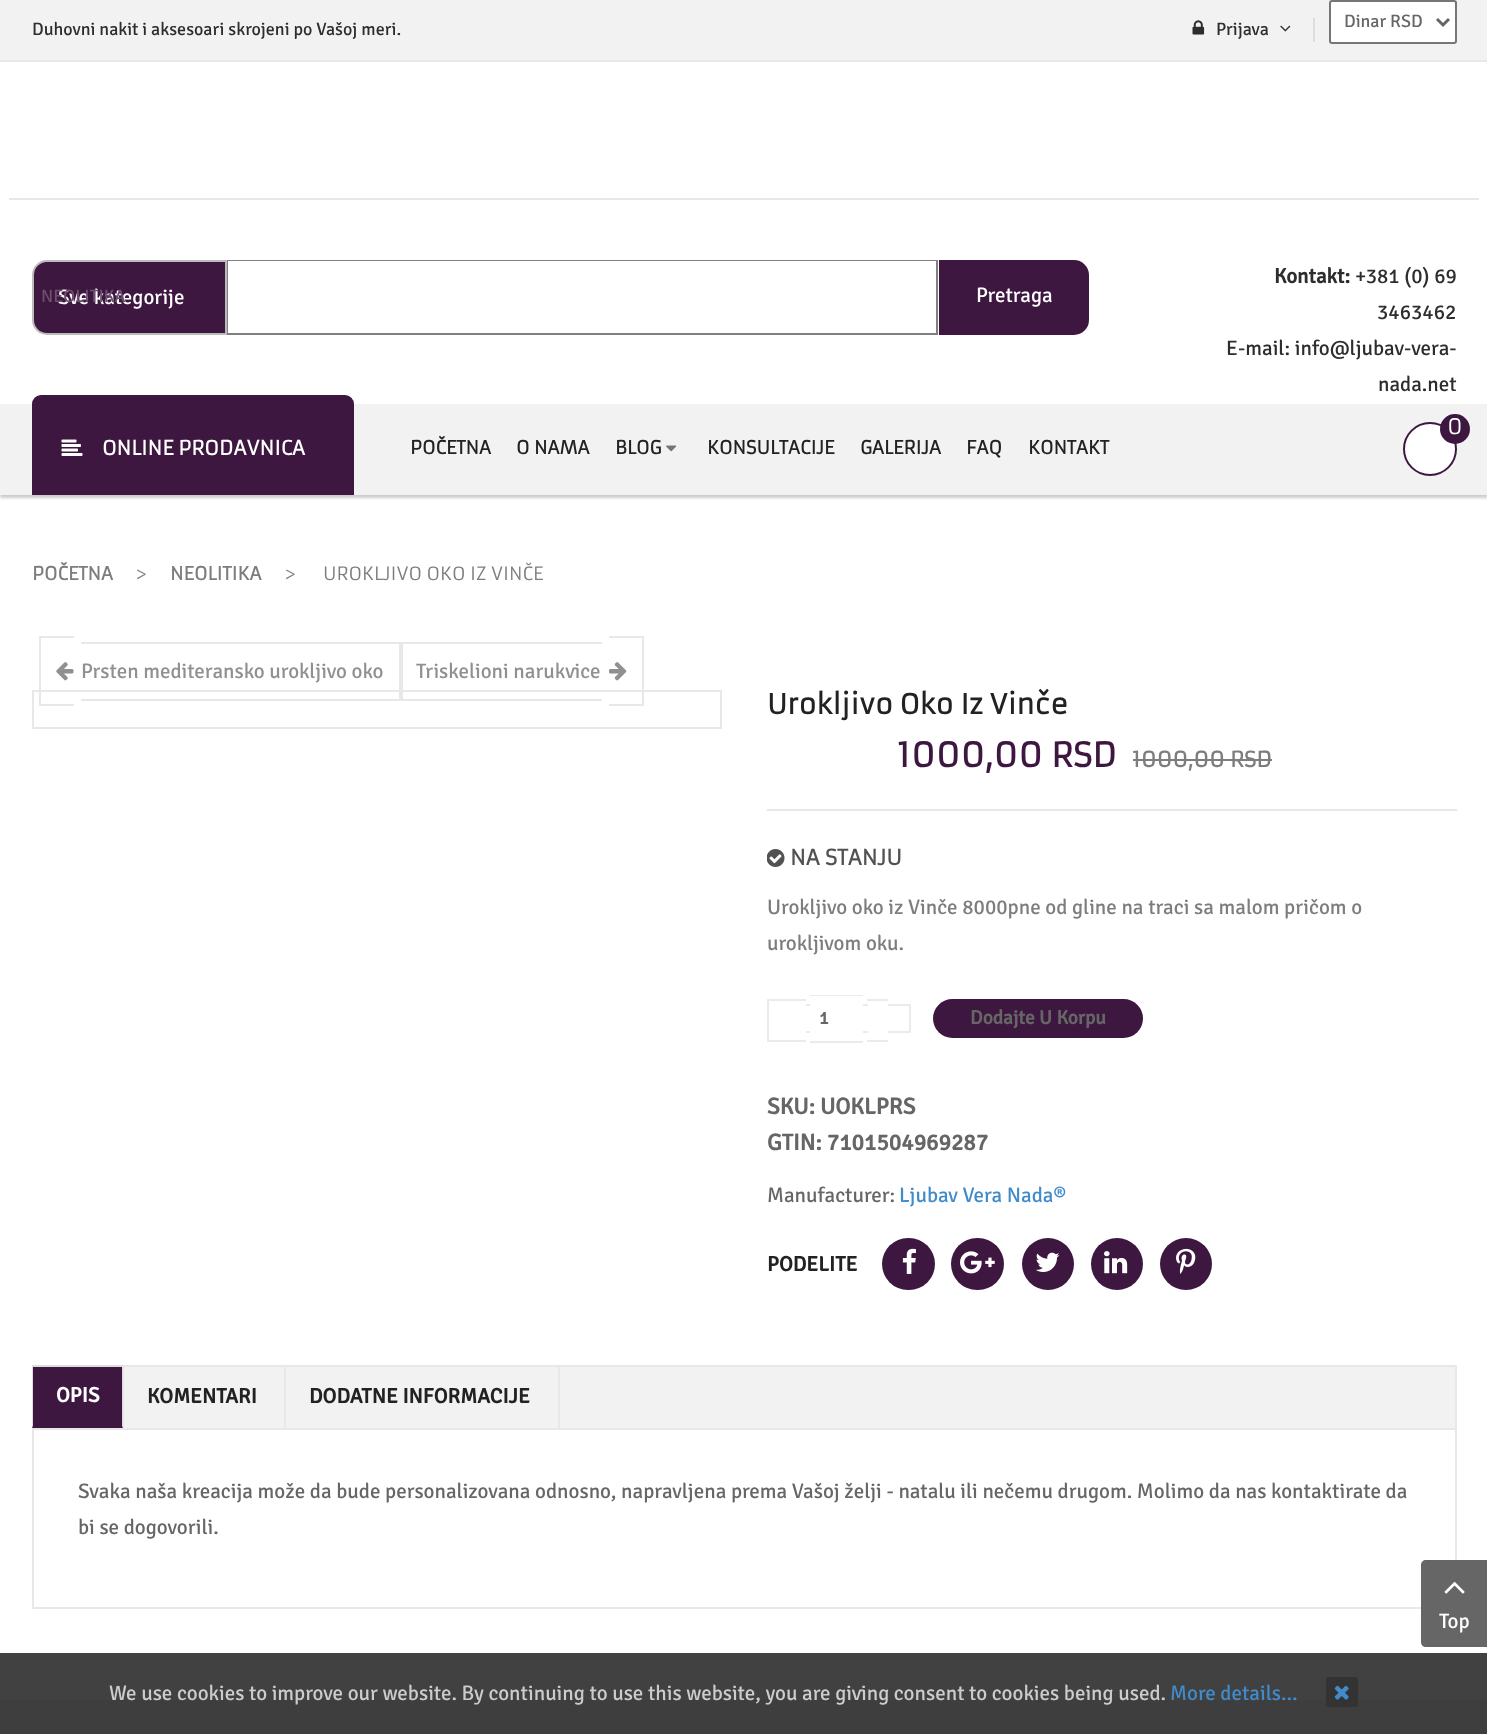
<!DOCTYPE html>
<meta charset="utf-8">
<style>body { margin: 0 } canvas { display: block }</style>
<canvas id="canvas" width="1487" height="1734"></canvas>
<script type="module">
  const canvas = document.getElementById("canvas");
  const g = canvas.getContext("2d");
  g.miterLimit = 4;
  g.fontKerning = "normal";
  function drawText(s, x, y, [font, color]) {
    g.font = font;
    g.fillStyle = color;
    g.fillText(s, x, y);
  }
  function fillBox(x, y, w, h, color) {
    g.fillStyle = color;
    g.fillRect(x, y, w, h);
  }
  function fillRounded(x, y, w, h, r, color) {
    g.fillStyle = color;
    g.beginPath();
    g.roundRect(x, y, w, h, r);
    g.fill();
  }
  async function drawPicture(src, x, y, w, h) {
    const img = new Image();
    img.src = src;
    await img.decode();
    g.drawImage(img, x, y, w, h);
  }

  const s1 = ["300 18px Signika", "#2D2D2D"];
  const s2 = ["300 18px Signika", "#666666"];
  const s3 = ["300 21px Signika", "#FFFFFF"];
  const s4 = ["300 18px Signika", "#6D4F6E"];
  const s5 = ["bold 21px Signika", "#2D2D2D"];
  const s6 = ["300 21px Signika", "#2D2D2D"];
  const s7 = ["21px Armata", "#FFFFFF"];
  const s8 = ["bold 19.5px Armata", "#FFFFFF"];
  const s9 = ["bold 18px Armata", "#222222"];
  const s10 = ["bold 18px Armata", "#7D7D7D"];
  const s11 = ["18px Armata", "#7D7D7D"];
  const s12 = ["300 21px Signika", "#909090"];
  const s13 = ["bold 27px Armata", "#222222"];
  const s14 = ["bold 33px Armata", "#3E1740"];
  const s15 = ["bold 21px Armata", "#7D7D7D"];
  const s16 = ["bold 21px Armata", "#525252"];
  const s17 = ["300 21px Signika", "#7D7D7D"];
  const s18 = ["bold 18px Signika", "#666666"];
  const s19 = ["bold 19.5px Signika", "#666666"];
  const s20 = ["bold 23px Signika", "#666666"];
  const s21 = ["300 21px Signika", "#666666"];
  const s22 = ["300 21px Signika", "#428BCA"];
  const s23 = ["bold 21px Signika", "#222222"];
  const s24 = ["bold 21px Signika", "#FFFFFF"];
  const s25 = ["300 21px Signika", "#CCCCCC"];

  fillBox(0, 0, 1487, 1734, "#FFFFFF");
  fillBox(0, 1653, 1487, 47, "#414141");
  fillBox(0, 0, 1487, 60, "#F2F2F2");
  fillBox(0, 60, 1487, 2, "#E8E8E8");
  drawText("Duhovni nakit i aksesoari skrojeni po Vašoj meri.", 32, 35, s1);
  await drawPicture("pic1.png", 1192, 20, 13, 15);
  drawText("Prijava", 1216, 35, s1);
  await drawPicture("pic2.png", 1280, 25, 11, 7);
  fillBox(1313, 18, 2, 24, "#DDDDDD");
  g.fillStyle = "#FFFFFF";
  g.beginPath();
  g.roundRect(1330, 1, 126, 42, 2);
  g.fill();
  g.strokeStyle = "#767676";
  g.lineWidth = 2;
  g.stroke();
  g.beginPath();
  g.moveTo(1437, 19);
  g.lineTo(1443, 25);
  g.lineTo(1449, 19);
  g.strokeStyle = "#666666";
  g.lineWidth = 3;
  g.stroke();
  drawText("Dinar RSD", 1344, 27, s2);
  fillBox(9, 198, 1470, 2, "#E8E8E8");
  g.fillStyle = "#3E1740";
  g.beginPath();
  g.roundRect(33, 261, 193, 73, [14, 0, 0, 14]);
  g.fill();
  g.strokeStyle = "#BBBBBB";
  g.lineWidth = 2;
  g.stroke();
  drawText("Sve kategorije", 58, 304, s3);
  drawText("NEOLITIKA", 41, 302, s4);
  g.strokeStyle = "#808080";
  g.strokeRect(228, 261, 709, 73);
  fillBox(228, 261, 708, 72, "#FFFFFF");
  g.fillStyle = "#3E1740";
  g.beginPath();
  g.roundRect(939, 260, 150, 75, [0, 15, 15, 0]);
  g.fill();
  drawText("Pretraga", 976, 302, s3);
  drawText("Kontakt:", 1274, 283, s5);
  drawText("+381 (0) 69", 1355, 283, s6);
  drawText("3463462", 1377, 319, s6);
  drawText("E-mail: info@ljubav-vera-", 1226, 355, s6);
  drawText("nada.net", 1378, 391, s6);
  g.fillStyle = "#CCCCCC";
  g.filter = "blur(1.5px)";
  g.beginPath();
  g.rect(0, 407, 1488, 91);
  g.fill();
  g.filter = "none";
  fillBox(0, 404, 1487, 91, "#F2F2F2");
  g.fillStyle = "#FFFFFF";
  g.beginPath();
  g.arc(1430, 449, 26, 0, Math.PI * 2);
  g.fill();
  g.strokeStyle = "#3E1740";
  g.stroke();
  g.fillStyle = "#3E1740";
  g.beginPath();
  g.arc(1455, 429, 15, 0, Math.PI * 2);
  g.fill();
  drawText("0", 1447, 434, s7);
  fillBox(32, 404, 322, 91, "#3E1740");
  g.beginPath();
  g.roundRect(32, 395, 322, 9, [9, 9, 0, 0]);
  g.fill();
  await drawPicture("pic3.png", 61, 439, 22, 17);
  drawText("ONLINE PRODAVNICA", 102, 455, s8);
  drawText("POČETNA", 410, 454, s9);
  drawText("O NAMA", 516, 454, s9);
  drawText("BLOG", 615, 454, s9);
  await drawPicture("pic4.png", 666, 445, 11, 7);
  drawText("KONSULTACIJE", 707, 454, s9);
  drawText("GALERIJA", 860, 454, s9);
  drawText("FAQ", 966, 454, s9);
  drawText("KONTAKT", 1028, 454, s9);
  drawText("POČETNA", 32, 580, s10);
  drawText(">", 135, 580, s11);
  drawText("NEOLITIKA", 170, 580, s10);
  drawText(">", 284, 580, s11);
  drawText("UROKLJIVO OKO IZ VINČE", 323, 580, s11);
  fillBox(39, 636, 35, 2, "#E8E8E8");
  fillBox(39, 704, 35, 2, "#E8E8E8");
  fillBox(39, 636, 2, 69, "#E8E8E8");
  fillBox(81, 642, 521, 2, "#E8E8E8");
  fillBox(399, 642, 2, 59, "#E8E8E8");
  fillBox(81, 699, 521, 2, "#E8E8E8");
  await drawPicture("pic5.png", 56, 662, 18, 19);
  drawText("Prsten mediteransko urokljivo oko", 81, 678, s12);
  fillBox(401, 642, 2, 59, "#E8E8E8");
  fillBox(609, 636, 35, 2, "#E8E8E8");
  fillBox(642, 636, 2, 69, "#E8E8E8");
  fillBox(609, 704, 35, 2, "#E8E8E8");
  drawText("Triskelioni narukvice", 416, 678, s12);
  await drawPicture("pic6.png", 609, 662, 18, 19);
  g.strokeStyle = "#E8E8E8";
  g.strokeRect(33, 691, 688, 37);
  drawText("Urokljivo Oko Iz Vinče", 767, 714, s13);
  fillBox(767, 809, 690, 2, "#E8E8E8");
  drawText("1000,00 RSD", 897, 767, s14);
  drawText("1000,00 RSD", 1132, 767, s15);
  fillBox(1133, 759, 139, 2, "#7D7D7D");
  await drawPicture("pic7.png", 767, 849, 18, 18);
  drawText("NA STANJU", 790, 865, s16);
  drawText("Urokljivo oko iz Vinče 8000pne od gline na traci sa malom pričom o", 767, 914, s17);
  drawText("urokljivom oku.", 767, 950, s17);
  fillBox(767, 999, 39, 2, "#EBEBEB");
  fillBox(767, 1040, 39, 2, "#EBEBEB");
  fillBox(767, 999, 2, 42, "#EBEBEB");
  fillBox(806, 1004, 5, 2, "#EBEBEB");
  fillBox(806, 1031, 5, 2, "#EBEBEB");
  fillBox(810, 995, 53, 1, "#EBEBEB");
  fillBox(810, 1041, 53, 2, "#EBEBEB");
  fillBox(863, 1004, 5, 2, "#EBEBEB");
  fillBox(863, 1031, 5, 2, "#EBEBEB");
  fillBox(867, 999, 21, 2, "#EBEBEB");
  fillBox(867, 1040, 21, 2, "#EBEBEB");
  fillBox(888, 1004, 23, 2, "#EBEBEB");
  fillBox(909, 1004, 2, 28, "#EBEBEB");
  fillBox(888, 1031, 23, 2, "#EBEBEB");
  fillBox(810, 1004, 1, 29, "#FFFFFF");
  drawText("1", 819, 1024, s18);
  fillRounded(933, 999, 210, 39, 19.5, "#3E1740");
  drawText("Dodajte U Korpu", 970, 1024, s19);
  drawText("SKU: UOKLPRS", 767, 1114, s20);
  drawText("GTIN: 7101504969287", 767, 1150, s20);
  drawText("Manufacturer:", 767, 1202, s21);
  drawText("Ljubav Vera Nada®", 899, 1202, s22);
  drawText("PODELITE", 767, 1271, s23);
  fillRounded(882, 1238, 53, 52, 26, "#3E1740");
  await drawPicture("pic8.png", 902, 1248, 14, 26);
  fillRounded(951, 1238, 53, 52, 26, "#3E1740");
  await drawPicture("pic9.png", 960, 1251, 35, 23);
  g.beginPath();
  g.arc(1048, 1264, 26, 0, Math.PI * 2);
  g.fill();
  await drawPicture("pic10.png", 1035, 1252, 25, 20);
  g.beginPath();
  g.arc(1117, 1264, 26, 0, Math.PI * 2);
  g.fill();
  await drawPicture("pic11.png", 1104, 1251, 24, 23);
  g.beginPath();
  g.arc(1186, 1264, 26, 0, Math.PI * 2);
  g.fill();
  await drawPicture("pic12.png", 1176, 1248, 20, 26);
  fillBox(123, 1367, 1332, 61, "#F2F2F2");
  g.strokeRect(33, 1366, 1423, 63);
  fillBox(123, 1367, 1, 60, "#E8E8E8");
  fillBox(32, 1367, 91, 61, "#3E1740");
  fillBox(32, 1365, 91, 2, "#DDDDDD");
  g.beginPath();
  g.moveTo(123, 1365);
  g.lineTo(123, 1428);
  g.lineTo(122, 1426);
  g.lineTo(122, 1366);
  g.closePath();
  g.fill();
  g.beginPath();
  g.moveTo(32, 1428);
  g.lineTo(32, 1365);
  g.lineTo(33, 1366);
  g.lineTo(33, 1426);
  g.closePath();
  g.fill();
  drawText("OPIS", 56, 1402, s24);
  fillBox(284, 1367, 2, 63, "#E8E8E8");
  drawText("KOMENTARI", 147, 1403, s23);
  fillBox(558, 1367, 2, 63, "#E8E8E8");
  drawText("DODATNE INFORMACIJE", 309, 1403, s23);
  fillBox(1455, 1430, 2, 130, "#E8E8E8");
  fillBox(32, 1607, 1389, 2, "#E8E8E8");
  fillBox(32, 1430, 2, 178, "#E8E8E8");
  drawText("Svaka naša kreacija može da bude personalizovana odnosno, napravljena prema Vašoj želji - natalu ili nečemu drugom. Molimo da nas kontaktirate da", 78, 1498, s21);
  drawText("bi se dogovorili.", 78, 1534, s21);
  fillBox(0, 1700, 1487, 34, "#3E3E3E");
  g.fillStyle = "#666666";
  g.beginPath();
  g.moveTo(1426, 1560);
  g.lineTo(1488, 1560);
  g.lineTo(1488, 1647);
  g.lineTo(1426, 1647);
  g.bezierCurveTo(1423, 1647, 1421, 1645, 1421, 1642);
  g.lineTo(1421, 1565);
  g.bezierCurveTo(1421, 1562, 1423, 1560, 1426, 1560);
  g.closePath();
  g.fill();
  await drawPicture("pic13.png", 1444, 1582, 21, 12);
  drawText("Top", 1439, 1628, s3);
  drawText("We use cookies to improve our website. By continuing to use this website, you are giving consent to cookies being used.", 109, 1700, s25);
  drawText("More details…", 1170, 1700, s22);
  fillRounded(1326, 1677, 32, 30, 3, "#333333");
  await drawPicture("pic14.png", 1334, 1685, 15, 15);
</script>
